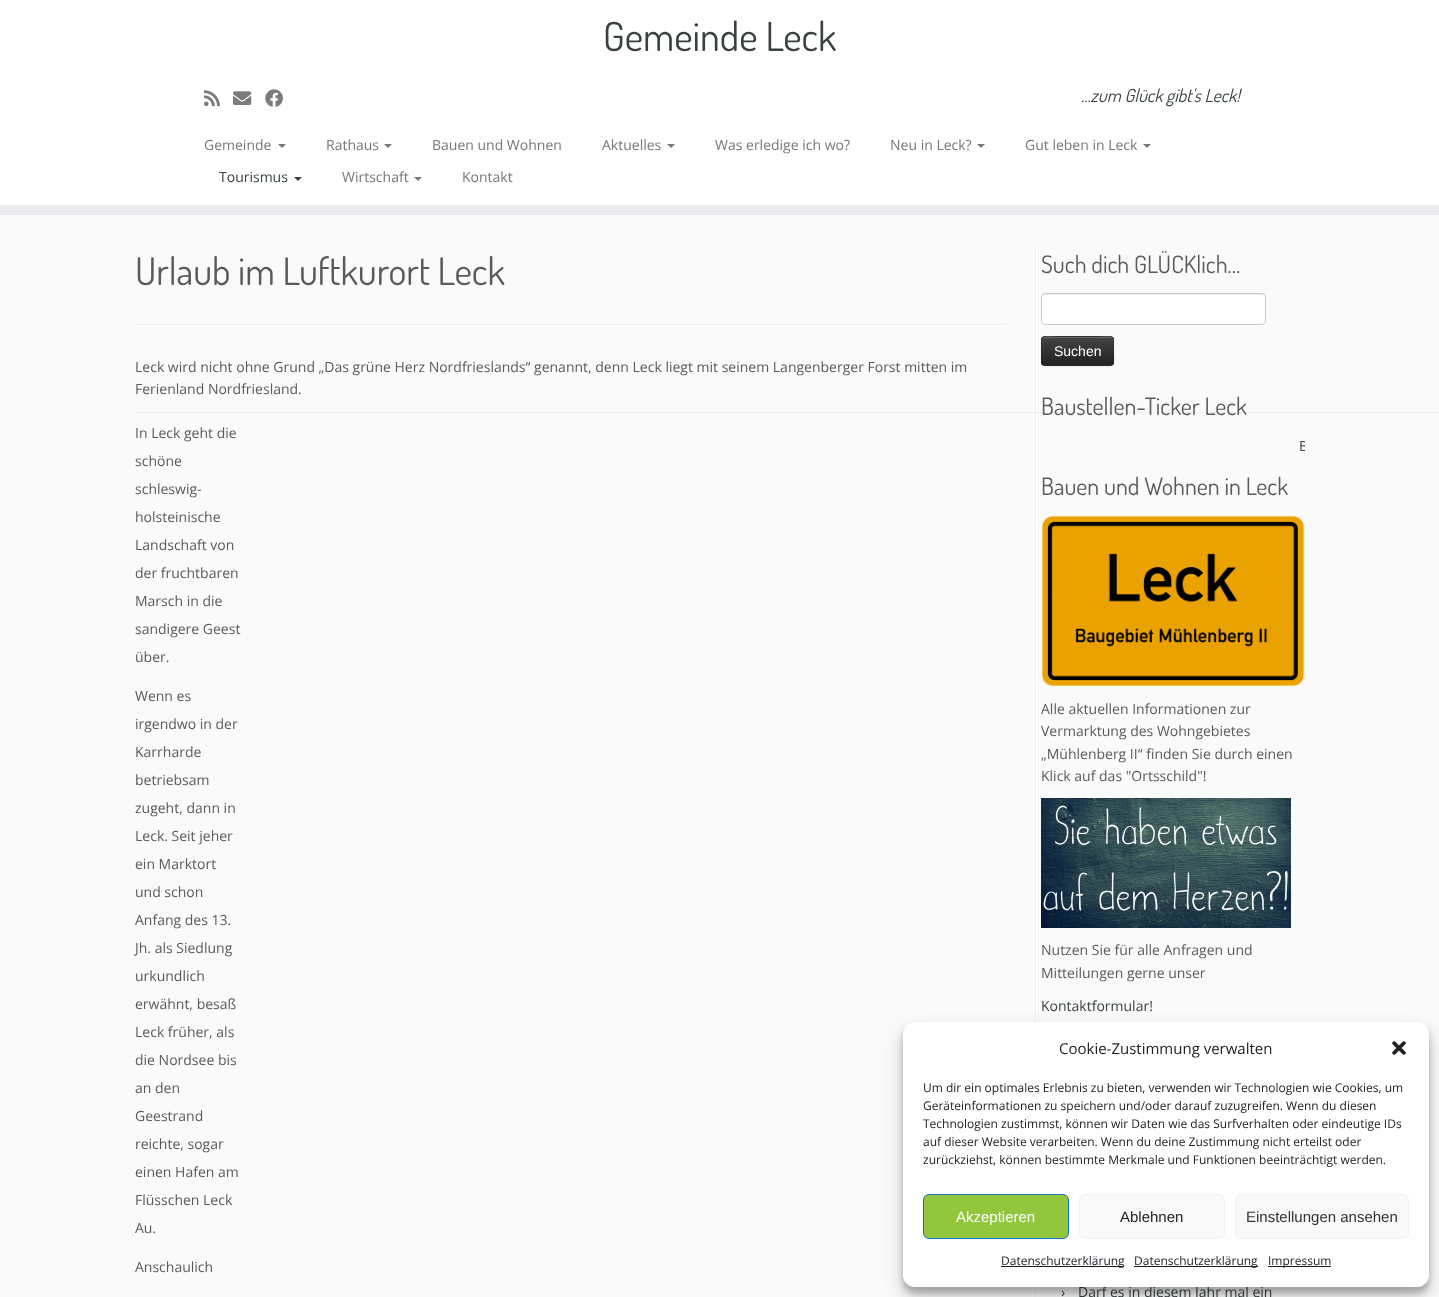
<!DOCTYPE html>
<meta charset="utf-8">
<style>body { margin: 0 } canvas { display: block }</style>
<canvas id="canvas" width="1439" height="1297"></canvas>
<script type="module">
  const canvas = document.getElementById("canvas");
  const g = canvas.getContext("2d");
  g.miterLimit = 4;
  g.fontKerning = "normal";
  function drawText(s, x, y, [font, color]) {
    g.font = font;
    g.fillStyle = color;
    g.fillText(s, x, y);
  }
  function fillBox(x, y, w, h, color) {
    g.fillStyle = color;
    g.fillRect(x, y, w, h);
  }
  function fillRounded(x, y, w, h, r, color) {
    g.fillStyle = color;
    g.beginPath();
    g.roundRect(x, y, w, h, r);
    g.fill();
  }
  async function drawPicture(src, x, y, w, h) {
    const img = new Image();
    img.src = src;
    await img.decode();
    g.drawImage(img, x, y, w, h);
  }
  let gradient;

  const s1 = ["40px Dosis", "#394143"];
  const s2 = ["italic 18px Dosis", "#394143"];
  const s3 = ["14px Open Sans", "#777777"];
  const s4 = ["14px Open Sans", "#394143"];
  const s5 = ["38px Dosis", "#5A5A5A"];
  const s6 = ["14px Open Sans", "#5A5A5A"];
  const s7 = ["24px Dosis", "#5A5A5A"];
  const s8 = ["14px Liberation Sans", "#FFFFFF"];
  const s9 = ["15px Open Sans", "#222222"];
  const s10 = ["12px Open Sans", "#222222"];
  const s11 = ["15px Liberation Sans", "#FFFFFF"];
  const s12 = ["15px Liberation Sans", "#222222"];
  const s13 = ["15px Liberation Sans", "#333333"];
  const s14 = ["12px Open Sans", "#191E23"];

  fillBox(0, 0, 1439, 1297, "#FAFAFA");
  fillBox(0, 0, 1439, 205, "#FFFFFF");
  fillBox(0, 205, 1439, 10, "#E9EAEE");
  drawText("Gemeinde Leck", 603, 51, s1);
  await drawPicture("pic1.png", 204, 90, 16, 17);
  await drawPicture("pic2.png", 233, 91, 19, 14);
  await drawPicture("pic3.png", 265, 89, 18, 18);
  drawText("…zum Glück gibt's Leck!", 1081, 102, s2);
  drawText("Gemeinde", 204, 150, s3);
  g.beginPath();
  g.moveTo(278, 144);
  g.lineTo(286, 144);
  g.lineTo(282, 148);
  g.closePath();
  g.fill();
  drawText("Rathaus", 326, 150, s3);
  g.beginPath();
  g.moveTo(384, 144);
  g.lineTo(392, 144);
  g.lineTo(388, 148);
  g.closePath();
  g.fill();
  drawText("Bauen und Wohnen", 432, 150, s3);
  drawText("Aktuelles", 602, 150, s3);
  g.beginPath();
  g.moveTo(667, 144);
  g.lineTo(675, 144);
  g.lineTo(671, 148);
  g.closePath();
  g.fill();
  drawText("Was erledige ich wo?", 715, 150, s3);
  drawText("Neu in Leck?", 890, 150, s3);
  g.beginPath();
  g.moveTo(977, 144);
  g.lineTo(985, 144);
  g.lineTo(981, 148);
  g.closePath();
  g.fill();
  drawText("Gut leben in Leck", 1025, 150, s3);
  g.beginPath();
  g.moveTo(1143, 144);
  g.lineTo(1151, 144);
  g.lineTo(1147, 148);
  g.closePath();
  g.fill();
  drawText("Tourismus", 219, 182, s4);
  g.beginPath();
  g.moveTo(294, 177);
  g.lineTo(302, 177);
  g.lineTo(298, 181);
  g.closePath();
  g.fill();
  drawText("Wirtschaft", 342, 182, s3);
  g.beginPath();
  g.moveTo(414, 177);
  g.lineTo(422, 177);
  g.lineTo(418, 181);
  g.closePath();
  g.fill();
  drawText("Kontakt", 462, 182, s3);
  drawText("Urlaub im Luftkurort Leck", 135, 285, s5);
  fillBox(135, 324, 870, 1, "#EEEEEE");
  fillBox(135, 325, 870, 1, "#FFFFFF");
  drawText("Leck wird nicht ohne Grund „Das grüne Herz Nordfrieslands“ genannt, denn Leck liegt mit seinem Langenberger Forst mitten im", 135, 372, s6);
  drawText("Ferienland Nordfriesland.", 135, 394, s6);
  fillBox(134, 412, 1305, 1, "#EDEDED");
  drawText("In Leck geht die", 135, 438, s6);
  drawText("schöne", 135, 466, s6);
  drawText("schleswig-", 135, 494, s6);
  drawText("holsteinische", 135, 522, s6);
  drawText("Landschaft von", 135, 550, s6);
  drawText("der fruchtbaren", 135, 578, s6);
  drawText("Marsch in die", 135, 606, s6);
  drawText("sandigere Geest", 135, 634, s6);
  drawText("über.", 135, 662, s6);
  drawText("Wenn es", 135, 701, s6);
  drawText("irgendwo in der", 135, 729, s6);
  drawText("Karrharde", 135, 757, s6);
  drawText("betriebsam", 135, 785, s6);
  drawText("zugeht, dann in", 135, 813, s6);
  drawText("Leck. Seit jeher", 135, 841, s6);
  drawText("ein Marktort", 135, 869, s6);
  drawText("und schon", 135, 897, s6);
  drawText("Anfang des 13.", 135, 925, s6);
  drawText("Jh. als Siedlung", 135, 953, s6);
  drawText("urkundlich", 135, 981, s6);
  drawText("erwähnt, besaß", 135, 1009, s6);
  drawText("Leck früher, als", 135, 1037, s6);
  drawText("die Nordsee bis", 135, 1065, s6);
  drawText("an den", 135, 1093, s6);
  drawText("Geestrand", 135, 1121, s6);
  drawText("reichte, sogar", 135, 1149, s6);
  drawText("einen Hafen am", 135, 1177, s6);
  drawText("Flüsschen Leck", 135, 1205, s6);
  drawText("Au.", 135, 1233, s6);
  drawText("Anschaulich", 135, 1272, s6);
  fillBox(1035, 246, 1, 1051, "#EEEEEE");
  fillBox(1036, 246, 1, 1051, "#FFFFFF");
  drawText("Such dich GLÜCKlich…", 1041, 273, s7);
  fillRounded(1041, 293, 225, 32, 4, "#FFFFFF");
  g.fillStyle = "#ECECEC";
  g.beginPath();
  g.moveTo(1045, 295);
  g.lineTo(1262, 295);
  g.bezierCurveTo(1264, 295, 1265, 296, 1265, 298);
  g.lineTo(1265, 297);
  g.bezierCurveTo(1265, 295, 1264, 294, 1262, 294);
  g.lineTo(1045, 294);
  g.bezierCurveTo(1043, 294, 1042, 295, 1042, 297);
  g.lineTo(1042, 298);
  g.bezierCurveTo(1042, 296, 1043, 295, 1045, 295);
  g.closePath();
  g.fill();
  g.beginPath();
  g.roundRect(1041.5, 293.5, 224, 31, 3.5);
  g.strokeStyle = "#CCCCCC";
  g.stroke();
  g.fillStyle = "rgba(0, 0, 0, 0.05)";
  g.filter = "blur(1px)";
  g.beginPath();
  g.roundRect(1041, 337, 73, 30, 4);
  g.fill();
  g.filter = "none";
  fillRounded(1041, 336, 73, 30, 4, "#363636");
  g.save();
  g.beginPath();
  g.roundRect(1041, 336, 73, 30, 4);
  g.clip();
  gradient = g.createLinearGradient(1078, 337, 1078, 365);
  gradient.addColorStop(0, "#444444");
  gradient.addColorStop(1, "#222222");
  g.fillStyle = gradient;
  g.fillRect(1041, 337, 73, 28);
  g.restore();
  g.fillStyle = "rgba(255, 255, 255, 0.2)";
  g.beginPath();
  g.moveTo(1045, 338);
  g.lineTo(1110, 338);
  g.bezierCurveTo(1112, 338, 1113, 339, 1113, 341);
  g.bezierCurveTo(1113, 334, 1103, 337, 1099, 337);
  g.lineTo(1056, 337);
  g.bezierCurveTo(1052, 337, 1042, 334, 1042, 341);
  g.bezierCurveTo(1042, 339, 1043, 338, 1045, 338);
  g.closePath();
  g.fill();
  g.beginPath();
  g.moveTo(1112.5, 364.5);
  g.lineTo(1110.5, 365.5);
  g.lineTo(1044.5, 365.5);
  g.lineTo(1042.5, 364.5);
  g.strokeStyle = "rgba(0, 0, 0, 0.25)";
  g.stroke();
  g.beginPath();
  g.moveTo(1042.5, 364.5);
  g.bezierCurveTo(1040.5, 362.5, 1041.5, 354, 1041.5, 351);
  g.bezierCurveTo(1041.5, 334.5, 1039, 336.5, 1056, 336.5);
  g.lineTo(1099, 336.5);
  g.bezierCurveTo(1116, 336.5, 1113.5, 334.5, 1113.5, 351);
  g.bezierCurveTo(1113.5, 354, 1114.5, 362.5, 1112.5, 364.5);
  g.strokeStyle = "rgba(0, 0, 0, 0.1)";
  g.stroke();
  drawText("Suchen", 1054, 356, s8);
  drawText("Baustellen-Ticker Leck", 1041, 415, s7);
  g.save();
  g.beginPath();
  g.rect(1041, 435, 264, 22);
  g.clip();
  drawText("B", 1299, 451, s4);
  g.restore();
  drawText("Bauen und Wohnen in Leck", 1041, 495, s7);
  await drawPicture("pic4.png", 1041, 515, 264, 172);
  drawText("Alle aktuellen Informationen zur", 1041, 714, s6);
  drawText("Vermarktung des Wohngebietes", 1041, 736, s6);
  drawText("„Mühlenberg II“ finden Sie durch einen", 1041, 759, s6);
  drawText("Klick auf das \"Ortsschild\"!", 1041, 781, s6);
  await drawPicture("pic5.png", 1041, 798, 250, 130);
  drawText("Nutzen Sie für alle Anfragen und", 1041, 955, s6);
  drawText("Mitteilungen gerne unser", 1041, 978, s6);
  drawText("Kontaktformular!", 1041, 1011, s4);
  drawText("›", 1061, 1297, s4);
  drawText("Darf es in diesem Jahr mal ein", 1078, 1297, s4);
  g.fillStyle = "rgba(0, 0, 0, 0.23)";
  g.filter = "blur(3px)";
  g.beginPath();
  g.roundRect(903, 1028, 526, 265, 12);
  g.fill();
  g.filter = "none";
  g.fillStyle = "rgba(0, 0, 0, 0.19)";
  g.filter = "blur(10px)";
  g.beginPath();
  g.roundRect(903, 1032, 526, 265, 12);
  g.fill();
  g.filter = "none";
  fillRounded(903, 1022, 526, 265, 12, "#FFFFFF");
  drawText("Cookie-Zustimmung verwalten", 1059, 1054, s9);
  await drawPicture("pic6.png", 1392, 1041, 14, 14);
  drawText("Um dir ein optimales Erlebnis zu bieten, verwenden wir Technologien wie Cookies, um", 923, 1092, s10);
  drawText("Geräteinformationen zu speichern und/oder darauf zuzugreifen. Wenn du diesen", 923, 1110, s10);
  drawText("Technologien zustimmst, können wir Daten wie das Surfverhalten oder eindeutige IDs", 923, 1128, s10);
  drawText("auf dieser Website verarbeiten. Wenn du deine Zustimmung nicht erteilst oder", 923, 1146, s10);
  drawText("zurückziehst, können bestimmte Merkmale und Funktionen beeinträchtigt werden.", 923, 1164, s10);
  g.fillStyle = "#92C63D";
  g.beginPath();
  g.roundRect(923.5, 1194.5, 145, 44, 5.5);
  g.fill();
  g.strokeStyle = "#1E73BE";
  g.stroke();
  drawText("Akzeptieren", 956, 1222, s11);
  g.fillStyle = "#F9F9F9";
  g.beginPath();
  g.roundRect(1079.5, 1194.5, 145, 44, 5.5);
  g.fill();
  g.strokeStyle = "#F2F2F2";
  g.stroke();
  drawText("Ablehnen", 1120, 1222, s12);
  g.fillStyle = "#F9F9F9";
  g.beginPath();
  g.roundRect(1235.5, 1194.5, 173, 44, 5.5);
  g.fill();
  g.stroke();
  drawText("Einstellungen ansehen", 1246, 1222, s13);
  fillBox(1001, 1266, 123, 1, "#191E23");
  drawText("Datenschutzerklärung", 1001, 1265, s14);
  fillBox(1134, 1266, 124, 1, "#191E23");
  drawText("Datenschutzerklärung", 1134, 1265, s14);
  fillBox(1268, 1266, 63, 1, "#191E23");
  drawText("Impressum", 1268, 1265, s14);
</script>
